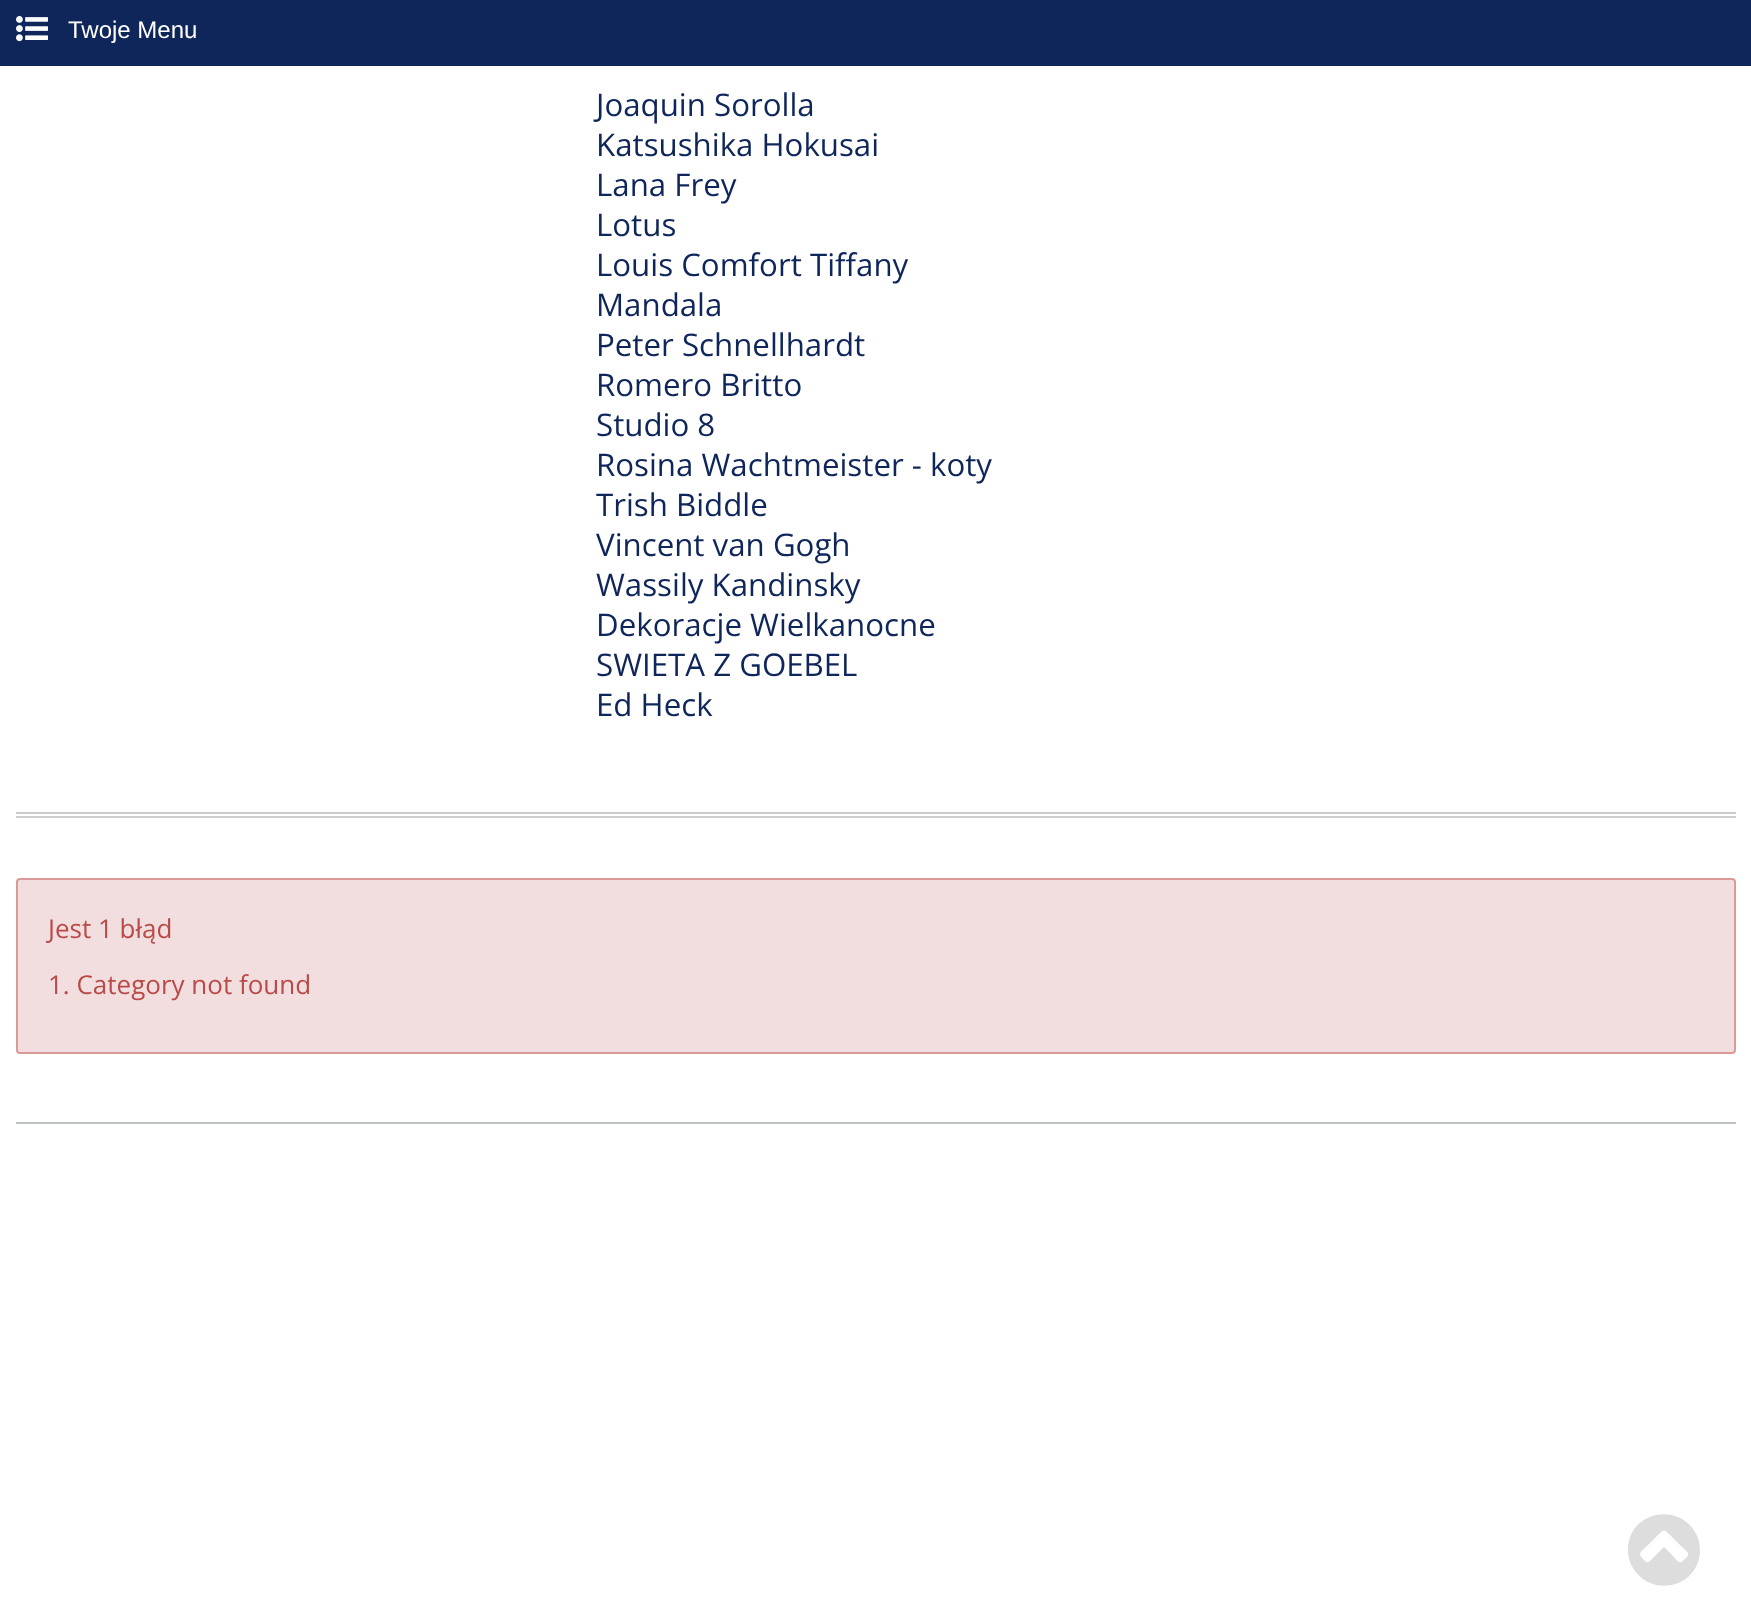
<!DOCTYPE html>
<meta charset="utf-8">
<style>body { margin: 0 } canvas { display: block }</style>
<canvas id="canvas" width="1751" height="1623"></canvas>
<script type="module">
  const canvas = document.getElementById("canvas");
  const g = canvas.getContext("2d");
  g.miterLimit = 4;
  g.fontKerning = "normal";
  function drawText(s, x, y, [font, color]) {
    g.font = font;
    g.fillStyle = color;
    g.fillText(s, x, y);
  }
  function fillBox(x, y, w, h, color) {
    g.fillStyle = color;
    g.fillRect(x, y, w, h);
  }
  async function drawPicture(src, x, y, w, h) {
    const img = new Image();
    img.src = src;
    await img.decode();
    g.drawImage(img, x, y, w, h);
  }

  const s1 = ["24px Liberation Sans", "#FFFFFF"];
  const s2 = ["31.25px Open Sans", "#0F265A"];
  const s3 = ["26px Open Sans", "#B94A48"];

  fillBox(0, 0, 1751, 1623, "#FFFFFF");
  fillBox(0, 0, 1751, 66, "#0F265A");
  await drawPicture("pic1.png", 16, 16, 32, 26);
  drawText("Twoje Menu", 68, 38, s1);
  fillBox(16, 812, 1720, 2, "#CCCCCC");
  fillBox(16, 816, 1720, 2, "#CCCCCC");
  drawText("Joaquin Sorolla", 596, 116, s2);
  drawText("Katsushika Hokusai", 596, 156, s2);
  drawText("Lana Frey", 596, 196, s2);
  drawText("Lotus", 596, 236, s2);
  drawText("Louis Comfort Tiffany", 596, 276, s2);
  drawText("Mandala", 596, 316, s2);
  drawText("Peter Schnellhardt", 596, 356, s2);
  drawText("Romero Britto", 596, 396, s2);
  drawText("Studio 8", 596, 436, s2);
  drawText("Rosina Wachtmeister - koty", 596, 476, s2);
  drawText("Trish Biddle", 596, 516, s2);
  drawText("Vincent van Gogh", 596, 556, s2);
  drawText("Wassily Kandinsky", 596, 596, s2);
  drawText("Dekoracje Wielkanocne", 596, 636, s2);
  drawText("SWIETA Z GOEBEL", 596, 676, s2);
  drawText("Ed Heck", 596, 716, s2);
  g.fillStyle = "#F2DEDE";
  g.beginPath();
  g.roundRect(17, 879, 1718, 174, 3);
  g.fill();
  g.strokeStyle = "#D99A98";
  g.lineWidth = 2;
  g.stroke();
  drawText("Jest 1 błąd", 48, 938, s3);
  drawText("1. Category not found", 48, 994, s3);
  fillBox(16, 1122, 1720, 2, "#BCC1C6");
  g.fillStyle = "#DDDDDD";
  g.beginPath();
  g.moveTo(1683, 1561);
  g.bezierCurveTo(1691, 1553, 1690, 1555, 1680, 1545);
  g.lineTo(1670, 1535);
  g.bezierCurveTo(1664, 1529, 1664, 1529, 1658, 1535);
  g.lineTo(1648, 1545);
  g.bezierCurveTo(1643, 1550, 1637, 1553, 1642, 1558);
  g.bezierCurveTo(1647, 1563, 1647, 1564, 1652, 1559);
  g.lineTo(1664, 1547);
  g.lineTo(1674, 1557);
  g.bezierCurveTo(1675, 1558, 1679, 1565, 1683, 1561);
  g.closePath();
  g.moveTo(1695, 1532);
  g.bezierCurveTo(1699, 1538, 1700, 1545, 1700, 1552);
  g.bezierCurveTo(1698, 1588, 1651, 1598, 1633, 1568);
  g.bezierCurveTo(1629, 1562, 1628, 1555, 1628, 1548);
  g.bezierCurveTo(1630, 1512, 1677, 1502, 1695, 1532);
  g.closePath();
  g.fill();
</script>
